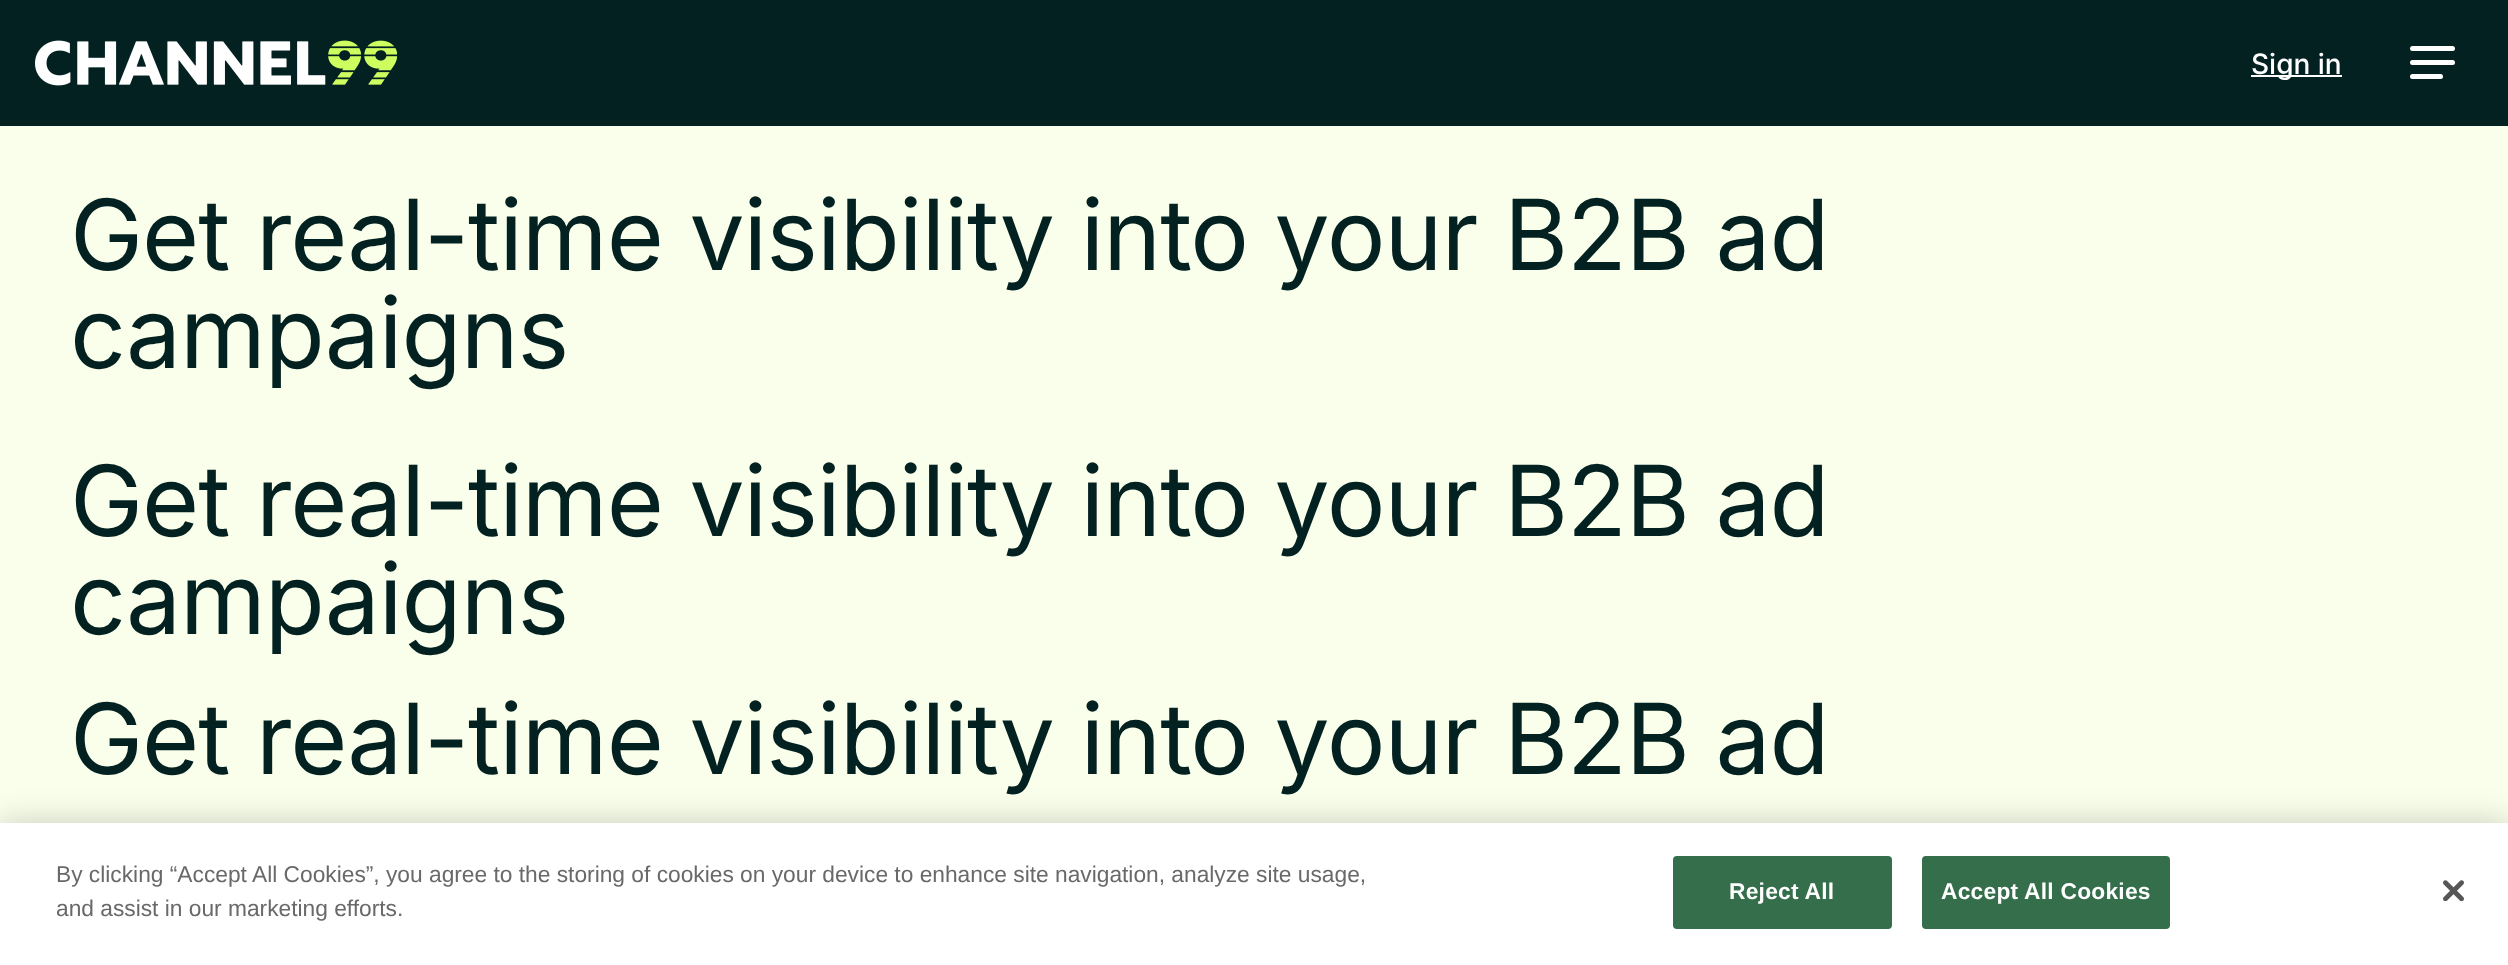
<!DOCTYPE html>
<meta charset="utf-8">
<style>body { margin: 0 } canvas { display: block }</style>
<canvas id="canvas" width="2508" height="965"></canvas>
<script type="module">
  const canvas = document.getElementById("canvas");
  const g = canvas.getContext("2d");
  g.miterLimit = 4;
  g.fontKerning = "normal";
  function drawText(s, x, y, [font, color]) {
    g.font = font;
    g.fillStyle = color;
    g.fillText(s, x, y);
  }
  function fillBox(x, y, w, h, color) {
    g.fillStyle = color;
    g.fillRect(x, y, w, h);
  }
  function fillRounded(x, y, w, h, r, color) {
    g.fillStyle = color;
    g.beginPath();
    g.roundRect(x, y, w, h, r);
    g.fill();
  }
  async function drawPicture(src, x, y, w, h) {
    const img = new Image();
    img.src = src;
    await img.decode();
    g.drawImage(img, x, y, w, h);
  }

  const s1 = ["500 28px Inter", "#FFFFFF"];
  const s2 = ["98px Inter", "#042122"];
  const s3 = ["22.75px Liberation Sans", "#696969"];
  const s4 = ["bold 22.75px Liberation Sans", "#FFFFFF"];

  fillBox(0, 0, 2508, 965, "#F9FFEB");
  fillBox(0, 0, 2508, 126, "#042122");
  await drawPicture("pic1.png", 35, 40, 362, 46);
  fillBox(2251, 75, 91, 2, "#FFFFFF");
  drawText("Sign in", 2251, 74, s1);
  fillRounded(2410, 46, 45, 5, 2.5, "#FFFFFF");
  fillRounded(2410, 60, 45, 5, 2.5, "#FFFFFF");
  fillRounded(2410, 74, 33, 5, 2.5, "#FFFFFF");
  g.letterSpacing = "-1px";
  drawText("Get real-time visibility into your B2B ad", 70, 270, s2);
  drawText("campaigns", 70, 368, s2);
  drawText("Get real-time visibility into your B2B ad", 70, 536, s2);
  drawText("campaigns", 70, 634, s2);
  drawText("Get real-time visibility into your B2B ad", 70, 774, s2);
  g.fillStyle = "rgba(0, 0, 0, 0.2)";
  g.filter = "blur(16px)";
  g.beginPath();
  g.rect(0, 823, 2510, 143);
  g.fill();
  g.filter = "none";
  fillBox(0, 823, 2508, 142, "#FFFFFF");
  g.letterSpacing = "0px";
  drawText("By clicking “Accept All Cookies”, you agree to the storing of cookies on your device to enhance site navigation, analyze site usage,", 56, 882, s3);
  drawText("and assist in our marketing efforts.", 56, 916, s3);
  g.fillStyle = "#346E4A";
  g.beginPath();
  g.roundRect(1674, 857, 217, 71, 3);
  g.fill();
  g.strokeStyle = "#346E4A";
  g.lineWidth = 2;
  g.stroke();
  g.letterSpacing = "0.25px";
  drawText("Reject All", 1729, 899, s4);
  g.fillStyle = "#346E4A";
  g.beginPath();
  g.roundRect(1923, 857, 246, 71, 3);
  g.fill();
  g.stroke();
  drawText("Accept All Cookies", 1941, 899, s4);
  await drawPicture("pic2.png", 2443, 880, 21, 21);
</script>
